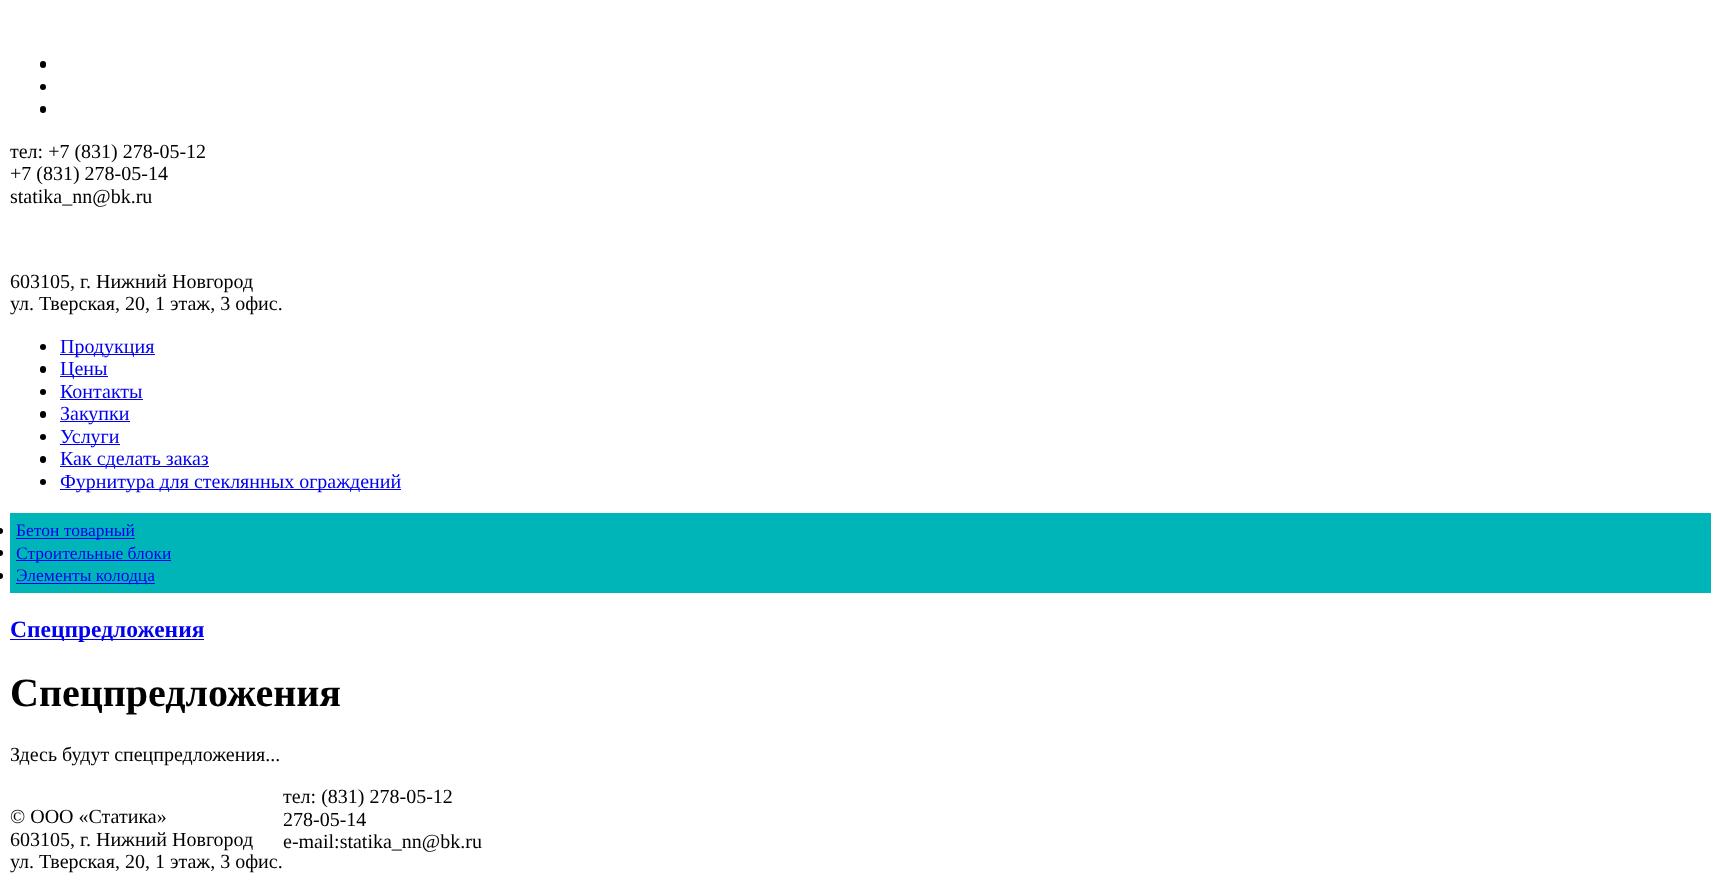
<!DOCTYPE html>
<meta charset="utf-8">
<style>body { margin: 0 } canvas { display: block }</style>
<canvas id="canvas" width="1721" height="893"></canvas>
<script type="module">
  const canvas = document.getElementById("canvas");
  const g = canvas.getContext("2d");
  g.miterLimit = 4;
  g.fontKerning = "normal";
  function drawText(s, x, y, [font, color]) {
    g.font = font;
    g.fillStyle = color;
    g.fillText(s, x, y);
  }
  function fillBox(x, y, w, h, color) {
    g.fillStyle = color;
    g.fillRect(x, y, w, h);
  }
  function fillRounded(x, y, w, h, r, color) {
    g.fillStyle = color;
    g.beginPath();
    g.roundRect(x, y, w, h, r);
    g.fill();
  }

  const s1 = ["20px Liberation Serif", "#000000"];
  const s2 = ["20px Liberation Serif", "#0000EE"];
  const s3 = ["17.5px Liberation Serif", "#0000EE"];
  const s4 = ["bold 23.5px Liberation Serif", "#0000EE"];
  const s5 = ["bold 40px Liberation Serif", "#000000"];

  fillBox(0, 0, 1721, 893, "#FFFFFF");
  fillRounded(40, 61, 6, 7, 3, "#000000");
  g.beginPath();
  g.arc(43, 87, 3, 0, Math.PI * 2);
  g.fill();
  fillRounded(40, 106, 6, 7, 3, "#000000");
  drawText("тел: +7 (831) 278-05-12", 10, 158, s1);
  drawText("+7 (831) 278-05-14", 10, 180, s1);
  drawText("statika_nn@bk.ru", 10, 203, s1);
  drawText("603105, г. Нижний Новгород", 10, 288, s1);
  drawText("ул. Тверская, 20, 1 этаж, 3 офис.", 10, 310, s1);
  g.beginPath();
  g.arc(43, 347, 3, 0, Math.PI * 2);
  g.fill();
  fillBox(60, 354, 95, 1, "#0000EE");
  drawText("Продукция", 60, 353, s2);
  fillRounded(40, 366, 6, 7, 3, "#000000");
  fillBox(60, 376, 48, 1, "#0000EE");
  drawText("Цены", 60, 375, s2);
  g.fillStyle = "#000000";
  g.beginPath();
  g.arc(43, 392, 3, 0, Math.PI * 2);
  g.fill();
  drawText("Контакты", 60, 398, s2);
  fillBox(60, 399, 83, 1, "#0000EE");
  fillRounded(40, 411, 6, 7, 3, "#000000");
  fillBox(60, 421, 70, 1, "#0000EE");
  drawText("Закупки", 60, 420, s2);
  g.fillStyle = "#000000";
  g.beginPath();
  g.arc(43, 437, 3, 0, Math.PI * 2);
  g.fill();
  fillBox(60, 444, 60, 1, "#0000EE");
  drawText("Услуги", 60, 443, s2);
  fillRounded(40, 456, 6, 7, 3, "#000000");
  fillBox(60, 466, 149, 1, "#0000EE");
  drawText("Как сделать заказ", 60, 465, s2);
  g.fillStyle = "#000000";
  g.beginPath();
  g.arc(43, 482, 3, 0, Math.PI * 2);
  g.fill();
  fillBox(60, 489, 341, 1, "#0000EE");
  drawText("Фурнитура для стеклянных ограждений", 60, 488, s2);
  fillBox(10, 513, 1701, 80, "#00B5B7");
  g.fillStyle = "#000000";
  g.beginPath();
  g.arc(0, 531, 3, 0, Math.PI * 2);
  g.fill();
  fillBox(16, 538, 119, 1, "#0000EE");
  drawText("Бетон товарный", 16, 536, s3);
  g.fillStyle = "#000000";
  g.beginPath();
  g.arc(0, 553, 3, 0, Math.PI * 2);
  g.fill();
  fillBox(16, 560, 155, 1, "#0000EE");
  drawText("Строительные блоки", 16, 559, s3);
  g.fillStyle = "#000000";
  g.beginPath();
  g.arc(0, 576, 3, 0, Math.PI * 2);
  g.fill();
  fillBox(16, 583, 139, 1, "#0000EE");
  drawText("Элементы колодца", 16, 581, s3);
  fillBox(10, 639, 194, 1, "#0000EE");
  drawText("Спецпредложения", 10, 637, s4);
  drawText("Спецпредложения", 10, 706, s5);
  drawText("Здесь будут спецпредложения...", 10, 761, s1);
  drawText("© ООО «Статика»", 10, 823, s1);
  drawText("603105, г. Нижний Новгород", 10, 846, s1);
  drawText("ул. Тверская, 20, 1 этаж, 3 офис.", 10, 868, s1);
  drawText("тел: (831) 278-05-12", 283, 803, s1);
  drawText("278-05-14", 283, 826, s1);
  drawText("e-mail:statika_nn@bk.ru", 283, 848, s1);
</script>
